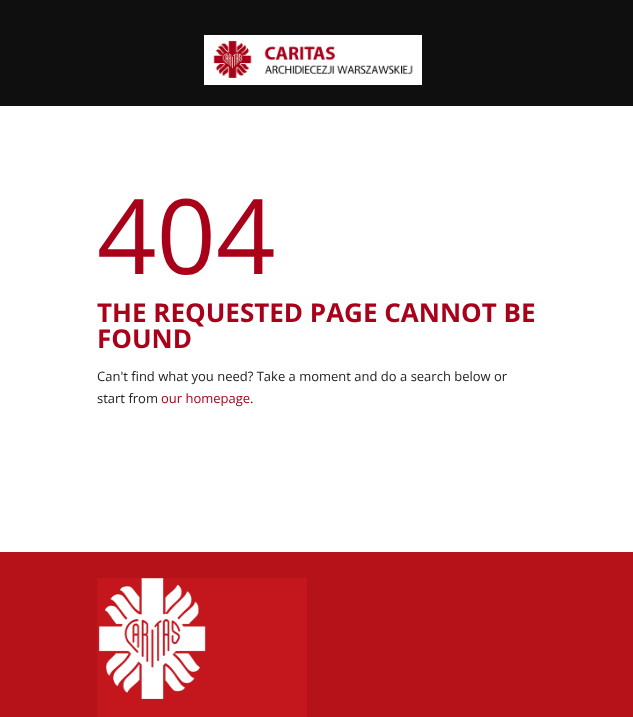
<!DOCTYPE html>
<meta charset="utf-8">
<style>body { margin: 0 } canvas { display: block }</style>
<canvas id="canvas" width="633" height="717"></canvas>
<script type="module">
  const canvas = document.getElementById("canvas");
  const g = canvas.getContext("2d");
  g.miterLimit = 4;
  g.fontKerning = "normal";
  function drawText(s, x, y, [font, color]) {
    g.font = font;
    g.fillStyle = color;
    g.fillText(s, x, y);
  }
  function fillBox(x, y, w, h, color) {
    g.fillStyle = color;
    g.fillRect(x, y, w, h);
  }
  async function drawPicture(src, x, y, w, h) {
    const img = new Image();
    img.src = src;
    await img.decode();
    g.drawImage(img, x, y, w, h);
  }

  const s1 = ["104px Open Sans", "#A9011A"];
  const s2 = ["bold 26px Open Sans", "#A9011A"];
  const s3 = ["13px Open Sans", "#222222"];
  const s4 = ["13px Open Sans", "#A9011A"];

  fillBox(0, 0, 633, 717, "#FFFFFF");
  fillBox(0, 0, 633, 106, "#0F0F0F");
  await drawPicture("pic1.png", 204, 35, 218, 50);
  drawText("404", 97, 274, s1);
  drawText("THE REQUESTED PAGE CANNOT BE", 97, 322, s2);
  drawText("FOUND", 97, 348, s2);
  drawText("Can't find what you need? Take a moment and do a search below or", 97, 381, s3);
  drawText("start from", 97, 403, s3);
  drawText("our homepage", 161, 403, s4);
  drawText(".", 250, 403, s3);
  fillBox(0, 552, 633, 165, "#B61219");
  fillBox(97, 578, 210, 139, "#C4161D");
  await drawPicture("pic2.png", 99, 578, 107, 121);
</script>
